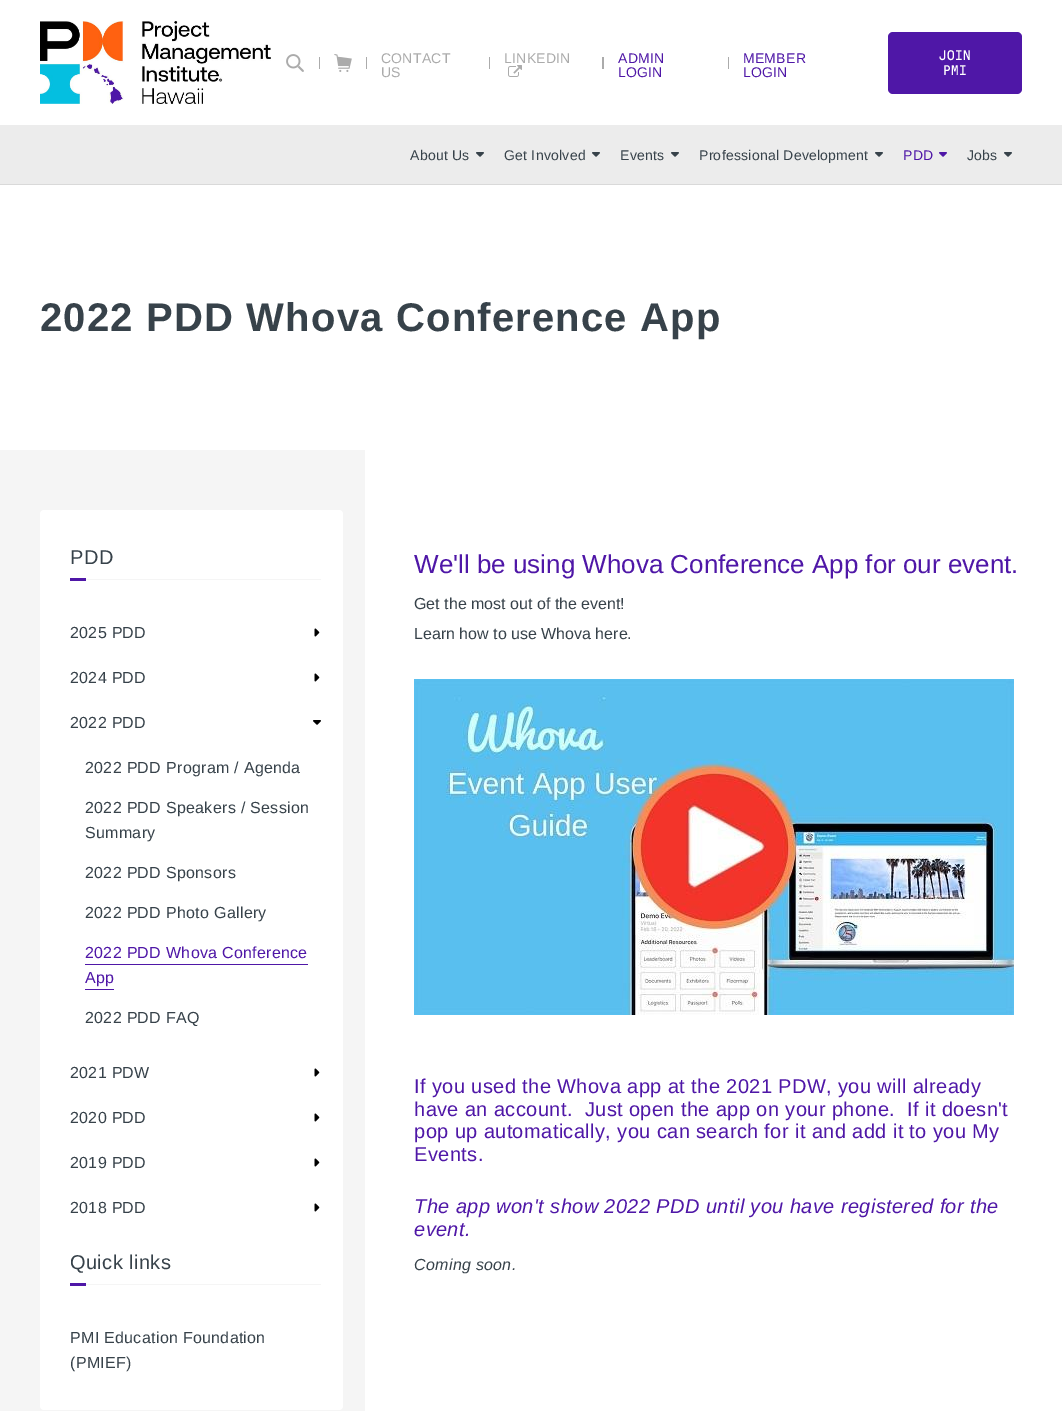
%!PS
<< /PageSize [1062 1411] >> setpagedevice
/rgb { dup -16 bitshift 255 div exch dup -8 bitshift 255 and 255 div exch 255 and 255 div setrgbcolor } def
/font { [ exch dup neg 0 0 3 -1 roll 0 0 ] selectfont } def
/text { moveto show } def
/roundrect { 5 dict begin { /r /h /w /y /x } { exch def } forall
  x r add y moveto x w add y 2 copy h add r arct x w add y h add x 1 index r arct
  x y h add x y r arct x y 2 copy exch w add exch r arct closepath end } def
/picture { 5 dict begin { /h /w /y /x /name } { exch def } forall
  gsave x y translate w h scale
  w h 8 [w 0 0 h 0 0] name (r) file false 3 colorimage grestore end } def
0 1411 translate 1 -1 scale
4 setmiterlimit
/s1 { /LiberationSans-Regular 26 font 16#4F17A7 rgb } def
/s2 { /LiberationSans-Regular 16 font 16#37424A rgb } def
16#FFFFFF rgb
0 0 1062 1411 rectfill
(pic1.raw) 40 21 231 83 picture
(pic2.raw) 286 54 18 18 picture
16#ABABAB rgb
319 57 1 12 rectfill
(pic3.raw) 334 54 18 18 picture
366 57 1 12 rectfill
/LiberationSans-Regular 14 font
381 63 moveto 0.25 0 (CONTACT) ashow
381 77 moveto 0.25 0 (US) ashow
489 57 1 12 rectfill
504 63 moveto 0.25 0 (LINKEDIN) ashow
(pic4.raw) 508 65 14 12 picture
602 57 2 12 rectfill
16#4F17A7 rgb
618 63 moveto 0.25 0 (ADMIN) ashow
618 77 moveto 0.25 0 (LOGIN) ashow
16#ABABAB rgb
728 57 1 12 rectfill
16#4F17A7 rgb
743 63 moveto 0.25 0 (MEMBER) ashow
743 77 moveto 0.25 0 (LOGIN) ashow
888 32 134 62 5 roundrect fill
/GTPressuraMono-Regular 14 font
16#FFFFFF rgb
939 60 moveto 0.25 0 (JOIN) ashow
943 75 moveto 0.25 0 (PMI) ashow
16#ECECEC rgb
0 125 1062 59 rectfill
16#D9D9D9 rgb
0 184 1062 1 rectfill
/LiberationSans-Regular 14 font
16#37424A rgb
410 160 moveto 0.25 0 (About Us) ashow
(pic5.raw) 476 152 8 5 picture
504 160 moveto 0.25 0 (Get Involved) ashow
(pic5.raw) 592 152 8 5 picture
620 160 moveto 0.25 0 (Events) ashow
(pic5.raw) 671 152 8 5 picture
699 160 moveto 0.25 0 (Professional Development) ashow
(pic5.raw) 875 152 8 5 picture
16#4F17A7 rgb
903 160 moveto 0.25 0 (PDD) ashow
(pic6.raw) 939 152 8 5 picture
16#37424A rgb
967 160 moveto 0.25 0 (Jobs) ashow
(pic5.raw) 1004 152 8 5 picture
/LiberationSans-Bold 40 font
40 331 moveto 1.2 0 (2022 PDD Whova Conference App) ashow
16#F5F5F5 rgb
0 450 365 961 rectfill
16#FFFFFF rgb
40 510 303 900 4 roundrect fill
16#F5F5F5 rgb
86 579 235 1 rectfill
/LiberationSans-Regular 20 font
16#37424A rgb
70 564 moveto 0.4 0 (PDD) ashow
16#4F17A7 rgb
70 578 16 3 rectfill
/LiberationSans-Regular 16 font
16#37424A rgb
70 638 moveto 0.3 0 (2025 PDD) ashow
(pic7.raw) 314 628 6 9 picture
70 683 moveto 0.3 0 (2024 PDD) ashow
(pic7.raw) 314 673 6 9 picture
70 728 moveto 0.3 0 (2022 PDD) ashow
(pic8.raw) 313 720 8 5 picture
85 773 moveto 0.3 0 (2022 PDD Program / Agenda) ashow
85 813 moveto 0.3 0 (2022 PDD Speakers / Session) ashow
85 838 moveto 0.3 0 (Summary) ashow
85 878 moveto 0.3 0 (2022 PDD Sponsors) ashow
85 918 moveto 0.3 0 (2022 PDD Photo Gallery) ashow
16#4F17A7 rgb
85 958 moveto 0.3 0 (2022 PDD Whova Conference) ashow
85 964 223 1 rectfill
85 983 moveto 0.3 0 (App) ashow
85 989 29 1 rectfill
16#37424A rgb
85 1023 moveto 0.3 0 (2022 PDD FAQ) ashow
70 1078 moveto 0.3 0 (2021 PDW) ashow
(pic7.raw) 314 1068 6 9 picture
70 1123 moveto 0.3 0 (2020 PDD) ashow
(pic7.raw) 314 1113 6 9 picture
70 1168 moveto 0.3 0 (2019 PDD) ashow
(pic7.raw) 314 1158 6 9 picture
70 1213 moveto 0.3 0 (2018 PDD) ashow
(pic7.raw) 314 1203 6 9 picture
16#F5F5F5 rgb
86 1284 235 1 rectfill
/LiberationSans-Regular 20 font
16#37424A rgb
70 1269 moveto 0.4 0 (Quick links) ashow
16#4F17A7 rgb
70 1283 16 3 rectfill
/LiberationSans-Regular 16 font
16#37424A rgb
70 1343 moveto 0.3 0 (PMI Education Foundation) ashow
70 1368 moveto 0.3 0 (\(PMIEF\)) ashow
s1
(We'll be using Whova Conference App for our event.) 414 573 text
s2
(Get the most out of the event!) 414 609 text
(Learn how to use Whova here.) 414 639 text
(pic9.raw) 414 679 600 336 picture
/LiberationSans-Regular 20 font
16#4F17A7 rgb
414 1093 moveto 0.4 0 (If you used the Whova app at the 2021 PDW, you will already) ashow
414 1116 moveto 0.4 0 (have an account.  Just open the app on your phone.  If it doesn't) ashow
414 1138 moveto 0.4 0 (pop up automatically, you can search for it and add it to you My) ashow
414 1161 moveto 0.4 0 (Events.) ashow
/LiberationSans-Italic 20 font
414 1213 moveto 0.4 0 (The app won't show 2022 PDD until you have registered for the) ashow
414 1236 moveto 0.4 0 (event.) ashow
/LiberationSans-Italic 16 font
16#37424A rgb
414 1270 moveto 0.3 0 (Coming soon.) ashow
showpage
